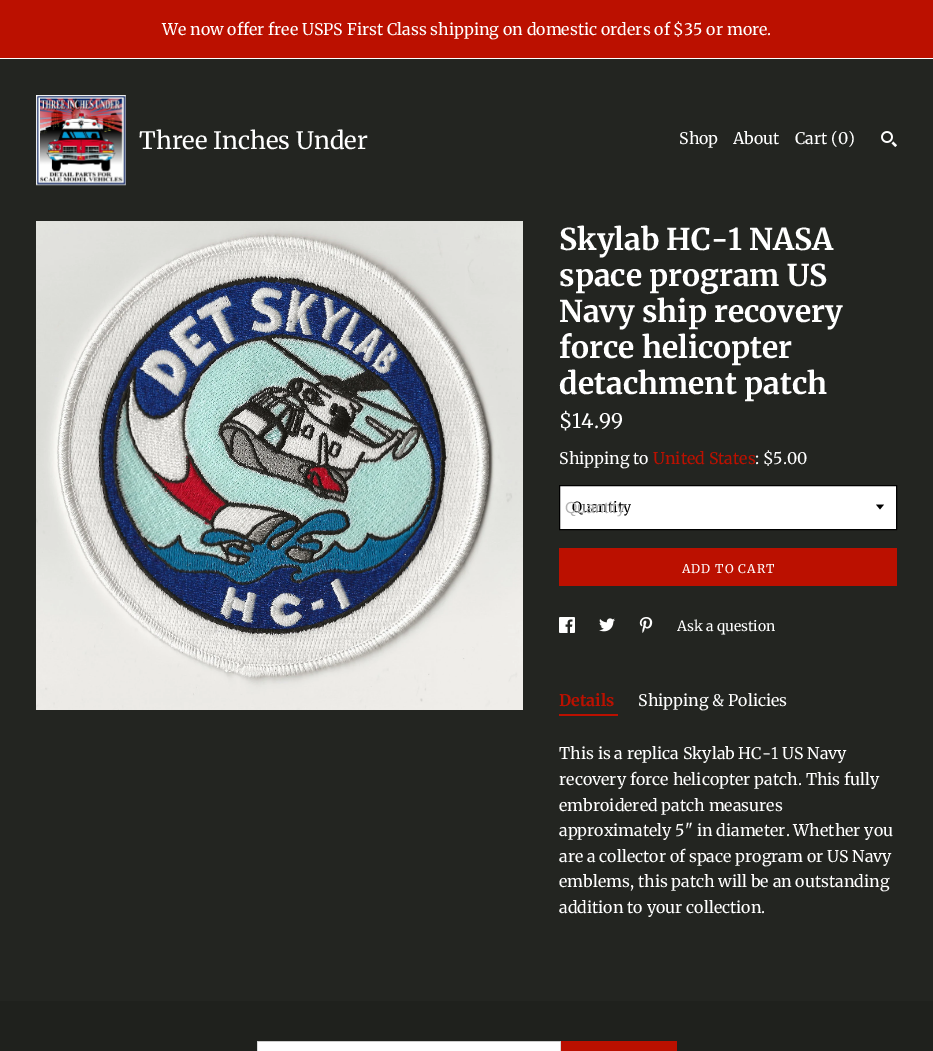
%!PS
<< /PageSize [933 1051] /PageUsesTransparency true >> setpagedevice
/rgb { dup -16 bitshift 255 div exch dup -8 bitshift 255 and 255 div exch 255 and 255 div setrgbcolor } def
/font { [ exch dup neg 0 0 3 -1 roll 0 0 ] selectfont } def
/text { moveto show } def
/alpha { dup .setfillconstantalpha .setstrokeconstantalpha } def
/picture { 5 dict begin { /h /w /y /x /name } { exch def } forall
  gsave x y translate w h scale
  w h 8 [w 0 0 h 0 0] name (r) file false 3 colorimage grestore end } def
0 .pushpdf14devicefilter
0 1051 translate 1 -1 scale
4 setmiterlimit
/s1 { /Merriweather-Regular 16 font 16#FFFFFF rgb } def
/s2 { /Merriweather-Regular 24 font 16#FFFFFF rgb } def
/s3 { /Merriweather-Bold 30 font 16#FFFFFF rgb } def
/s4 { /Merriweather-Regular 20 font 16#FFFFFF rgb } def
/s5 { /Merriweather-Regular 16 font 16#BB1000 rgb } def
/s6 { /Merriweather-Regular 14 font 16#000000 rgb } def
/s7 { /LiberationSans-Regular 16 font 16#B4B4B4 rgb } def
/s8 { /Merriweather-Regular 14 font 16#FFFFFF rgb } def
/s9 { /Merriweather-Bold 16 font 16#BB1000 rgb } def
16#232521 rgb
0 0 933 1051 rectfill
16#BB1000 rgb
0 0 933 58 rectfill
16#FFFFFF rgb
0 58 933 1 rectfill
s1
(We now offer free USPS First Class shipping on domestic orders of $35 or more.) 162 35 text
(pic1.raw) 36 95 90 91 picture
s2
(Three Inches Under) 139 149 text
s1
(Shop) 679 144 text
(About) 733 144 text
(Cart \(0\)) 795 144 text
(pic2.raw) 881 131 16 16 picture
(pic3.raw) 36 221 487 489 picture
s3
(Skylab HC-1 NASA) 559 250 text
(space program US) 559 286 text
(Navy ship recovery) 559 322 text
(force helicopter) 559 358 text
(detachment patch) 559 394 text
s4
($14.99) 559 428 text
s1
(Shipping to) 559 464 text
s5
(United States) 653 464 text
s1
(: $5.00) 755 464 text
559.5 485.5 moveto 896.5 485.5 lineto 896.5 529.5 lineto 559.5 529.5 lineto closepath gsave fill grestore
16#000000 rgb
stroke
s6
(Quantity) 572 512 text
s7
(Quantity) 565 513 text
(pic4.raw) 876 504 8 6 picture
16#BB1000 rgb
559 548 338 38 rectfill
/Merriweather-Regular 12 font
16#FFFFFF rgb
682 573 moveto 1 0 (ADD TO CART) ashow
(pic5.raw) 559 617 16 16 picture
(pic6.raw) 599 618 16 14 picture
(pic7.raw) 639 617 14 16 picture
s8
(Ask a question) 677 631 text
s9
(Details) 559 706 text
559 714 59 2 rectfill
s1
(Shipping & Policies) 638 706 text
(This is a replica Skylab HC-1 US Navy) 559 759 text
(recovery force helicopter patch. This fully) 559 785 text
(embroidered patch measures) 559 811 text
(approximately 5" in diameter. Whether you) 559 836 text
(are a collector of space program or US Navy) 559 862 text
(emblems, this patch will be an outstanding) 559 887 text
(addition to your collection.) 559 913 text
16#1F211D rgb
0 1001 933 50 rectfill
16#FFFFFF rgb
257 1041 304 10 rectfill
16#CCCCCC rgb
257 1041 moveto 561 1041 lineto 560 1042 lineto 258 1042 lineto closepath fill
0.15 alpha
16#000000 rgb
561 1041 moveto 561 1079 lineto 560 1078 lineto 560 1042 lineto closepath fill
257 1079 moveto 257 1041 lineto 258 1042 lineto 258 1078 lineto closepath fill
1 alpha
16#BB1000 rgb
561 1041 116 10 rectfill
.poppdf14devicefilter showpage
